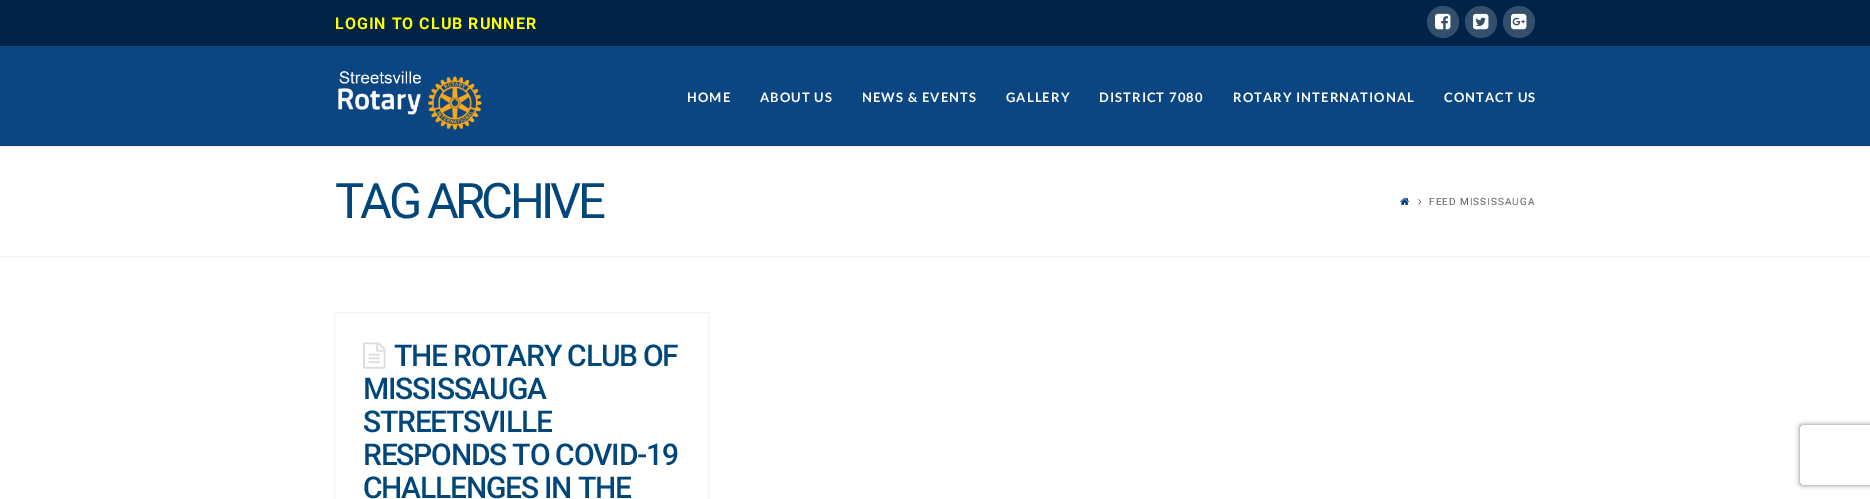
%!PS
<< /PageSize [1870 499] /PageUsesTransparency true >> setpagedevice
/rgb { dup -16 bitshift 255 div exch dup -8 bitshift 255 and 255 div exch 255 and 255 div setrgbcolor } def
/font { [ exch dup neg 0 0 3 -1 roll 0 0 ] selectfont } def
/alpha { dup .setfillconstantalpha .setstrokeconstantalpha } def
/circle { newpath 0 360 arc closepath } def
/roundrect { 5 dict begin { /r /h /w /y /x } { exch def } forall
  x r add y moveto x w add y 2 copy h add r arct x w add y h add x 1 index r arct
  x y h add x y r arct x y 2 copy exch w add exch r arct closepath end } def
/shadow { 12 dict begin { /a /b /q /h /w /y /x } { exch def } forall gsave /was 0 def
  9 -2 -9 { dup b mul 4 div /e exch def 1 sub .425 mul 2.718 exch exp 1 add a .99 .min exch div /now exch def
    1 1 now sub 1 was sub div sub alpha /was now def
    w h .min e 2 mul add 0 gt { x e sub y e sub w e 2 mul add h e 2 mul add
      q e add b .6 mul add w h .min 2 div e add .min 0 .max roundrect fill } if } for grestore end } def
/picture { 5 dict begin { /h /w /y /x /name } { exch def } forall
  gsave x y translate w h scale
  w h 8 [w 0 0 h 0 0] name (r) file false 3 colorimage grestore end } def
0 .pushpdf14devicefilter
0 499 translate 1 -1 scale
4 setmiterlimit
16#FFFFFF rgb
0 0 1870 499 rectfill
16#002347 rgb
0 0 1870 46 rectfill
/Roboto-Bold 16 font
16#FFFF00 rgb
335 29 moveto 1 0 (LOGIN TO CLUB RUNNER) ashow
16#334F6C rgb
1443 22 16 circle fill
(pic1.raw) 1435 13 16 17 picture
1481 22 16 circle fill
(pic2.raw) 1473 13 16 17 picture
1519 22 16 circle fill
(pic3.raw) 1511 13 16 17 picture
16#0B4683 rgb
0 46 1870 100 rectfill
(pic4.raw) 338 71 144 59 picture
/Lato-Bold 13 font
16#FFFFFF rgb
687 102 moveto 1.1 0 (HOME) ashow
760 102 moveto 1.1 0 (ABOUT US) ashow
862 102 moveto 1.1 0 (NEWS & EVENTS) ashow
1006 102 moveto 1.1 0 (GALLERY) ashow
1099 102 moveto 1.1 0 (DISTRICT 7080) ashow
1233 102 moveto 1.1 0 (ROTARY INTERNATIONAL) ashow
1444 102 moveto 1.1 0 (CONTACT US) ashow
16#F2F2F2 rgb
0 146 1870 1 rectfill
0 256 1870 1 rectfill
/Roboto-Regular 49 font
16#00467B rgb
335 218 moveto -3.75 0 (TAG ARCHIVE) ashow
(pic5.raw) 1400 197 10 8 picture
(pic6.raw) 1418 199 4 6 picture
/Roboto-Regular 10 font
16#616161 rgb
1429 205 moveto 1 0 (FEED MISSISSAUGA) ashow
16#F2F2F2 rgb
334.5 312.5 374 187 rectstroke
(pic7.raw) 363 342 23 27 picture
/Roboto-Medium 30 font
16#00467B rgb
394 366 moveto -1.2 0 (THE ROTARY CLUB OF) ashow
363 399 moveto -1.2 0 (MISSISSAUGA) ashow
363 432 moveto -1.2 0 (STREETSVILLE) ashow
363 465 moveto -1.2 0 (RESPONDS TO COVID-19) ashow
363 498 moveto -1.2 0 (CHALLENGES IN THE) ashow
gsave
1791 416 moveto 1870 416 lineto 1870 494 lineto 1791 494 lineto closepath 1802 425 moveto 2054 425 lineto 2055 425 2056 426 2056 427 curveto 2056 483 lineto 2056 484 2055 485 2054 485 curveto 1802 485 lineto 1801 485 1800 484 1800 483 curveto 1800 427 lineto 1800 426 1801 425 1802 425 curveto closepath eoclip newpath
16#808080 rgb
1800 425 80 60 2 2.5 1 shadow
grestore
.poppdf14devicefilter showpage
